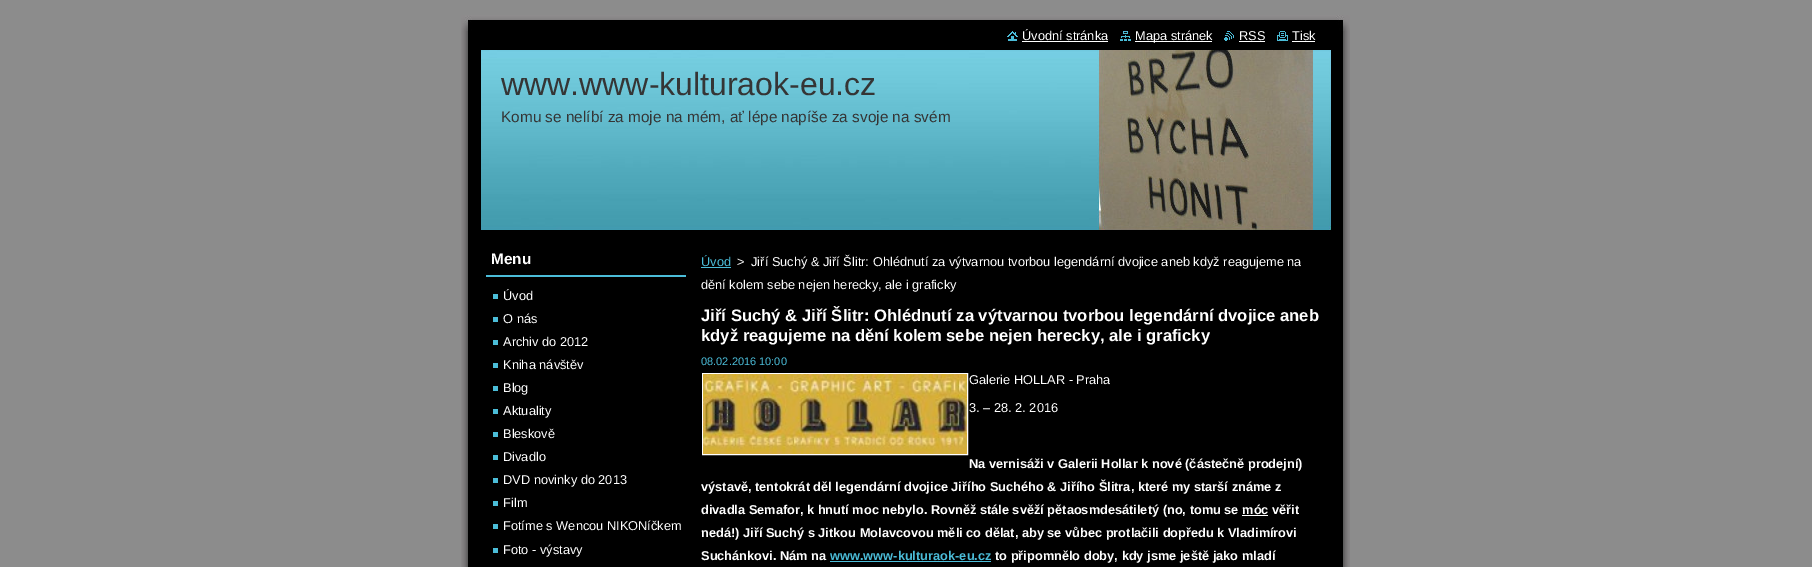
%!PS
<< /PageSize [1812 567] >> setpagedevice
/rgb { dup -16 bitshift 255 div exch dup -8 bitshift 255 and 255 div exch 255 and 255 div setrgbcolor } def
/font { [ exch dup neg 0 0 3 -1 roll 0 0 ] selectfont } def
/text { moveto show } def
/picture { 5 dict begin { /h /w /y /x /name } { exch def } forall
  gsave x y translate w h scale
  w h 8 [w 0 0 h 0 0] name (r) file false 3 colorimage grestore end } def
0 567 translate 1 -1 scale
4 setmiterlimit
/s1 { /LiberationSans-Regular 12.8 font 16#FFFFFF rgb } def
/s2 { /LiberationSans-Regular 32 font 16#353535 rgb } def
/s3 { /LiberationSans-Regular 15.35 font 16#353535 rgb } def
/s4 { /LiberationSans-Bold 15.35 font 16#FFFFFF rgb } def
/s5 { /LiberationSans-Regular 12.8 font 16#4BBCD8 rgb } def
/s6 { /LiberationSans-Bold 16.65 font 16#FFFFFF rgb } def
/s7 { /LiberationSans-Regular 11 font 16#4BBCD8 rgb } def
/s8 { /LiberationSans-Bold 12.8 font 16#FFFFFF rgb } def
/s9 { /LiberationSans-Bold 12.8 font 16#4BBCD8 rgb } def
16#8C8C8C rgb
0 0 1812 567 rectfill
(pic1.raw) 461 31 889 528 picture
(pic2.raw) 461 15 889 16 picture
(pic3.raw) 461 559 889 8 picture
(pic4.raw) 1007 31 11 10 picture
s1
(Úvodní stránka) 1022 40 text
1022 41 86 1 rectfill
(pic5.raw) 1120 31 11 10 picture
1135 41 77 1 rectfill
(Mapa stránek) 1135 40 text
(pic6.raw) 1224 31 10 10 picture
(RSS) 1239 40 text
1239 41 26 1 rectfill
(pic7.raw) 1277 31 11 10 picture
(Tisk) 1292 40 text
1292 41 23 1 rectfill
(pic8.raw) 481 50 850 180 picture
s2
(www.www-kulturaok-eu.cz) 501 95 text
s3
(Komu se nelíbí za moje na mém, ať lépe napíše za svoje na svém) 501 122 text
16#4BBCD8 rgb
486 275 200 2 rectfill
s4
(Menu) 491 264 text
s1
(Úvod) 503 300 text
16#4BBDD8 rgb
493 294 5 5 rectfill
s1
(O nás) 503 323 text
16#4BBDD8 rgb
493 317 5 5 rectfill
s1
(Archiv do 2012) 503 346 text
16#4BBDD8 rgb
493 340 5 5 rectfill
s1
(Kniha návštěv) 503 369 text
16#4BBDD8 rgb
493 363 5 5 rectfill
s1
(Blog) 503 392 text
16#4BBDD8 rgb
493 386 5 5 rectfill
s1
(Aktuality) 503 415 text
16#4BBDD8 rgb
493 409 5 5 rectfill
s1
(Bleskově) 503 438 text
16#4BBDD8 rgb
493 432 5 5 rectfill
s1
(Divadlo) 503 461 text
16#4BBDD8 rgb
493 455 5 5 rectfill
s1
(DVD novinky do 2013) 503 484 text
16#4BBDD8 rgb
493 478 5 5 rectfill
s1
(Film) 503 507 text
16#4BBDD8 rgb
493 501 5 5 rectfill
s1
(Fotíme s Wencou NIKONíčkem) 503 530 text
16#4BBDD8 rgb
493 524 5 5 rectfill
s1
(Foto - výstavy) 503 554 text
16#4BBDD8 rgb
493 548 5 5 rectfill
s5
(Úvod) 701 266 text
701 267 30 1 rectfill
s1
(>) 737 266 text
(Jiří Suchý & Jiří Šlitr: Ohlédnutí za výtvarnou tvorbou legendární dvojice aneb když reagujeme na) 751 266 text
(dění kolem sebe nejen herecky, ale i graficky) 701 289 text
s6
(Jiří Suchý & Jiří Šlitr: Ohlédnutí za výtvarnou tvorbou legendární dvojice aneb) 701 321 text
(když reagujeme na dění kolem sebe nejen herecky, ale i graficky) 701 341 text
s7
(08.02.2016 10:00) 701 365 text
16#FFFFFF rgb
702.5 373.5 265 81 rectstroke
(pic9.raw) 703 374 264 80 picture
s1
(Galerie HOLLAR - Praha) 969 384 text
(3. – 28. 2. 2016) 969 412 text
s8
(Na vernisáži v Galerii Hollar k nové \(částečně prodejní\)) 969 468 text
(výstavě, tentokrát děl legendární dvojice Jiřího Suchého & Jiřího Šlitra, které my starší známe z) 701 491 text
(divadla Semafor, k hnutí moc nebylo. Rovněž stále svěží pětaosmdesátiletý \(no, tomu se móc věřit) 701 514 text
1242 515 26 1 rectfill
(nedá!\) Jiří Suchý s Jitkou Molavcovou měli co dělat, aby se vůbec protlačili dopředu k Vladimírovi) 701 537 text
(Suchánkovi. Nám na) 701 560 text
s9
(www.www-kulturaok-eu.cz) 830 560 text
830 561 161 1 rectfill
s8
(to připomnělo doby, kdy jsme ještě jako mladí) 995 560 text
showpage
